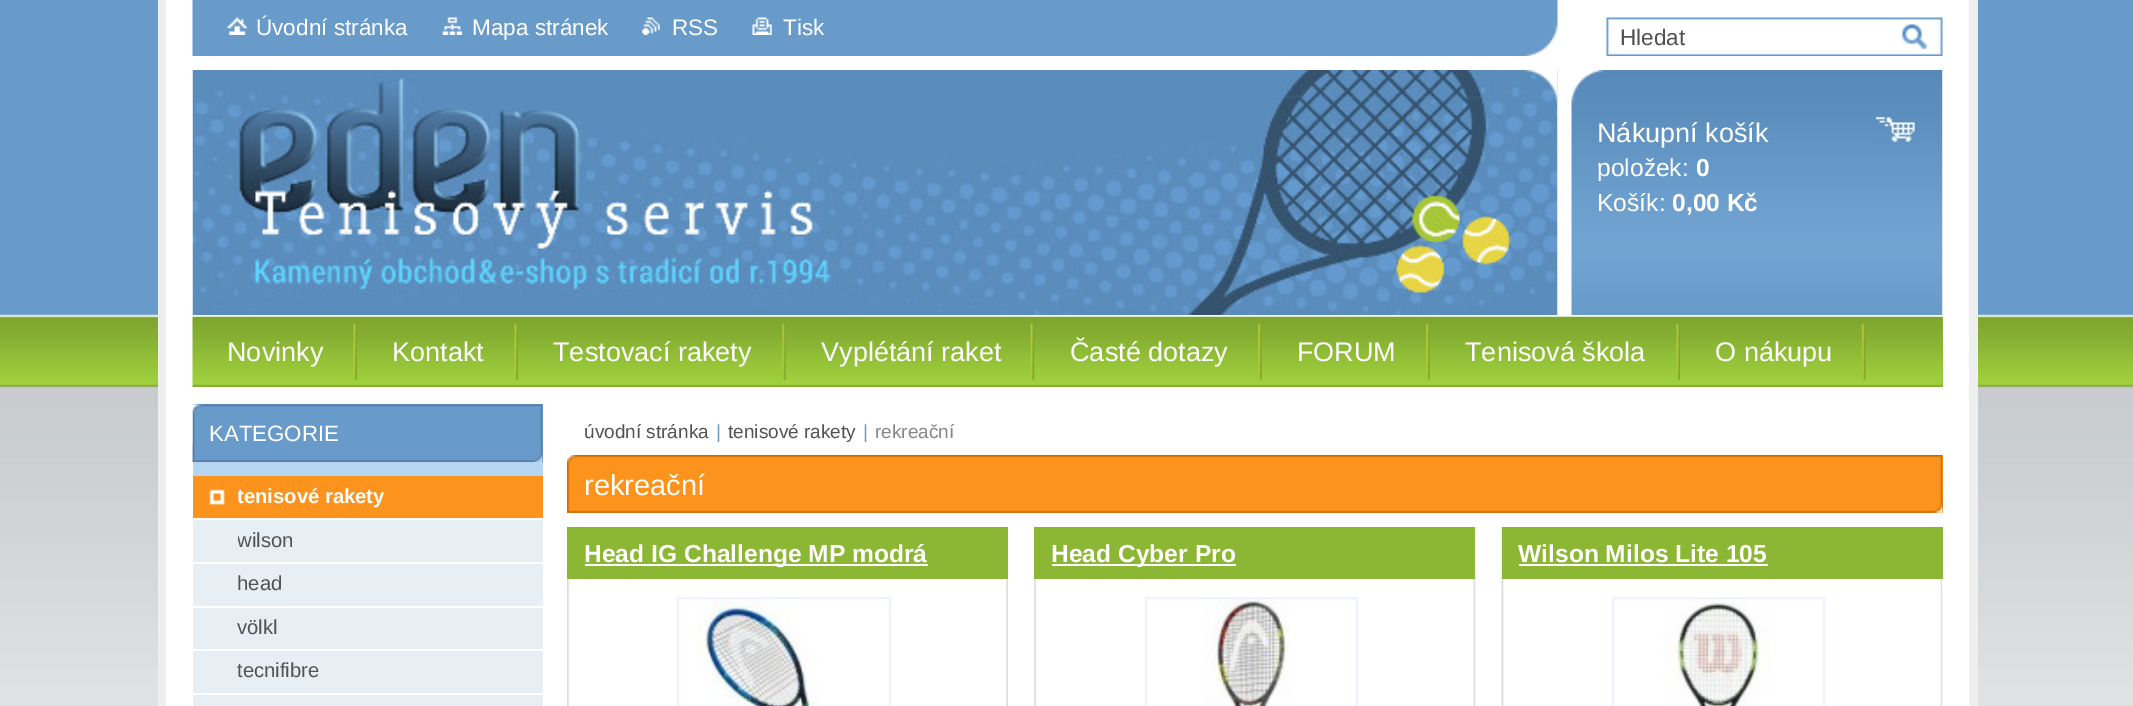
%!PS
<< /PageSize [2133 706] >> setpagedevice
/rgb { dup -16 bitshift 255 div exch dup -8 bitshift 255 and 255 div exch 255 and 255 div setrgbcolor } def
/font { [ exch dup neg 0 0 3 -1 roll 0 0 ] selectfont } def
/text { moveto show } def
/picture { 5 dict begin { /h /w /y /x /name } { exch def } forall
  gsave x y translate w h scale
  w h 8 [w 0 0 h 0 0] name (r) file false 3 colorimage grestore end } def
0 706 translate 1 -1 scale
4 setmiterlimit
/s1 { /LiberationSans-Regular 22.5 font 16#FFFFFF rgb } def
/s2 { /LiberationSans-Regular 22.5 font 16#535353 rgb } def
/s3 { /LiberationSans-Regular 27 font 16#FFFFFF rgb } def
/s4 { /LiberationSans-Regular 24.6 font 16#FFFFFF rgb } def
/s5 { /LiberationSans-Bold 24.6 font 16#FFFFFF rgb } def
/s6 { /LiberationSans-Regular 22.25 font 16#FFFFFF rgb } def
/s7 { /LiberationSans-Bold 20.25 font 16#FFFFFF rgb } def
/s8 { /LiberationSans-Regular 20.25 font 16#535353 rgb } def
/s9 { /LiberationSans-Regular 19 font 16#535353 rgb } def
/s10 { /LiberationSans-Regular 19 font 16#689BCA rgb } def
/s11 { /LiberationSans-Regular 19 font 16#878787 rgb } def
/s12 { /LiberationSans-Regular 29 font 16#FFFFFF rgb } def
16#FFFFFF rgb
0 0 2133 706 rectfill
(pic1.raw) 0 0 2133 706 picture
166 0 1803 706 rectfill
16#EFEFEF rgb
1969 0 9 706 rectfill
158 0 8 706 rectfill
(pic2.raw) 192 0 1366 56 picture
(pic3.raw) 227 17 20 18 picture
s1
(Úvodní stránka) 256 35 text
(pic4.raw) 442 17 20 18 picture
(Mapa stránek) 472 35 text
(pic5.raw) 642 17 18 18 picture
(RSS) 672 35 text
(pic6.raw) 752 17 20 18 picture
(Tisk) 783 35 text
(pic7.raw) 1606 17 337 39 picture
s2
(Hledat) 1620 45 text
(pic8.raw) 1907 25 15 23 picture
(pic9.raw) 192 70 1366 245 picture
(pic10.raw) 1523 70 35 34 picture
(pic11.raw) 1571 70 372 245 picture
(pic12.raw) 1876 117 39 25 picture
s3
(Nákupní košík) 1597 142 text
s4
(položek:) 1597 176 text
s5
(0) 1696 176 text
s4
(Košík:) 1597 211 text
s5
(0,00 Kč) 1672 211 text
16#8CB734 rgb
193 317 1750 70 rectfill
(pic13.raw) 192 316 1751 71 picture
(pic14.raw) 353 323 4 57 picture
s3
(Novinky) 227 361 text
(pic14.raw) 514 323 4 57 picture
(Kontakt) 392 361 text
(pic15.raw) 782 323 4 57 picture
(Testovací rakety) 553 361 text
(pic16.raw) 1030 323 5 57 picture
(Vyplétání raket) 821 361 text
(pic15.raw) 1258 323 4 57 picture
(Časté dotazy) 1070 361 text
(pic15.raw) 1426 323 4 57 picture
(FORUM) 1297 361 text
(pic14.raw) 1676 323 4 57 picture
(Tenisová škola) 1465 361 text
(pic17.raw) 1862 323 4 57 picture
(O nákupu) 1715 361 text
16#B6D5F2 rgb
193 462 350 14 rectfill
16#689BCA rgb
193 404 350 58 rectfill
(pic18.raw) 192 404 351 58 picture
(pic19.raw) 192 444 351 18 picture
s6
(KATEGORIE) 209 441 text
16#FC931C rgb
193 476 350 42 rectfill
(pic20.raw) 209 489 16 16 picture
gsave
238 476 287 42 rectclip
s7
(tenisové rakety) 237 503 text
grestore
16#E7EFF5 rgb
193 520 350 186 rectfill
16#FFFFFF rgb
193 562 350 2 rectfill
gsave
238 520 287 42 rectclip
s8
(wilson) 237 547 text
grestore
193 606 350 2 rectfill
s8
(head) 237 590 text
16#FFFFFF rgb
193 649 350 2 rectfill
s8
(völkl) 237 634 text
16#FFFFFF rgb
193 693 350 2 rectfill
s8
(tecnifibre) 237 677 text
s9
(úvodní stránka) 584 438 text
s10
(|) 716 438 text
s9
(tenisové rakety) 728 438 text
s10
(|) 863 438 text
s11
(rekreační) 875 438 text
16#FC931C rgb
567 455 1376 58 rectfill
(pic21.raw) 567 455 1376 58 picture
(pic22.raw) 567 495 1376 18 picture
s12
(rekreační) 584 495 text
(pic23.raw) 567 526 441 180 picture
16#8CB734 rgb
567 527 441 52 rectfill
16#FFFFFF rgb
585 564 343 2 rectfill
s5
(Head IG Challenge MP modrá) 584 562 text
(pic24.raw) 695 599 125 107 picture
16#EFF3FF rgb
2 setlinewidth
678 598 212 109 rectstroke
(pic25.raw) 1034 526 442 180 picture
16#8CB734 rgb
1034 527 441 52 rectfill
16#FFFFFF rgb
1052 564 184 2 rectfill
(Head Cyber Pro) 1051 562 text
(pic26.raw) 1204 599 87 107 picture
16#EFF3FF rgb
1146 598 211 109 rectstroke
(pic27.raw) 1501 526 442 180 picture
16#8CB734 rgb
1502 527 441 52 rectfill
s5
(Wilson Milos Lite 105) 1518 562 text
1519 564 249 2 rectfill
(pic28.raw) 1663 599 108 107 picture
16#EFF3FF rgb
1613 598 211 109 rectstroke
showpage
